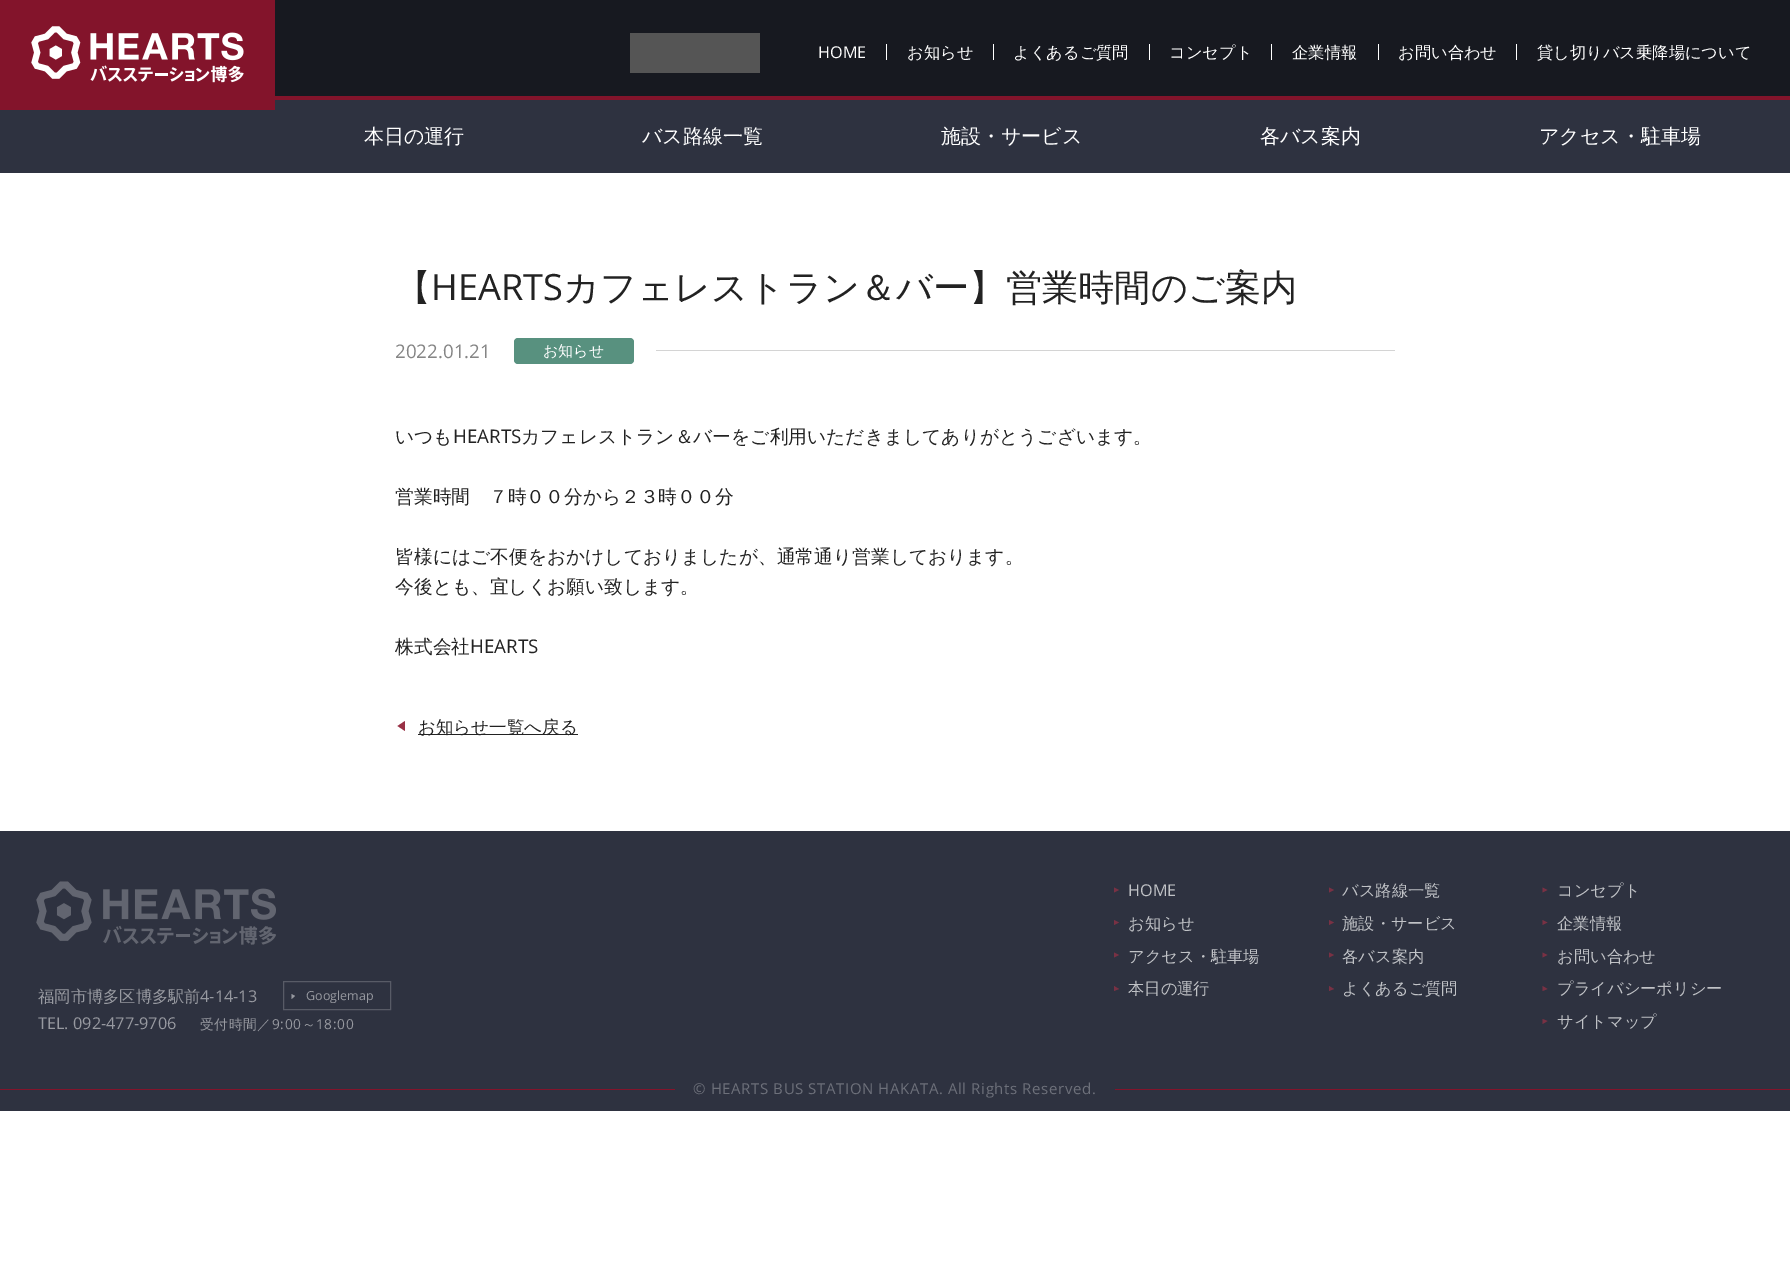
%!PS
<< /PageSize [1790 1281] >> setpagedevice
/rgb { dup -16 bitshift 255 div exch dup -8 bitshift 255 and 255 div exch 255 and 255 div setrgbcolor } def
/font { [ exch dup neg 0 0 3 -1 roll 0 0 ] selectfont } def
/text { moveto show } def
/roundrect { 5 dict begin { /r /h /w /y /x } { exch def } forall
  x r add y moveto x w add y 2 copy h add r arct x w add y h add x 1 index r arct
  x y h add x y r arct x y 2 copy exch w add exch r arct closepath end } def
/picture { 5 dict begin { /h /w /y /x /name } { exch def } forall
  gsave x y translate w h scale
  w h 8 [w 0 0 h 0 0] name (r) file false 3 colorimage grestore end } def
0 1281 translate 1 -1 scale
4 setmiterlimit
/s1 { /OpenSans-Regular 16.25 font 16#FFFFFF rgb } def
/s2 { /WenQuanYiZenHei-Medium 16.25 font 16#FFFFFF rgb } def
/s3 { /WenQuanYiZenHei-Medium 20 font 16#FFFFFF rgb } def
/s4 { /WenQuanYiZenHei-Medium 36.25 font 16#222222 rgb } def
/s5 { /OpenSans-Regular 36.25 font 16#222222 rgb } def
/s6 { /OpenSans-Regular 18.75 font 16#858585 rgb } def
/s7 { /WenQuanYiZenHei-Medium 15 font 16#FFFFFF rgb } def
/s8 { /WenQuanYiZenHei-Medium 18.75 font 16#222222 rgb } def
/s9 { /OpenSans-Regular 18.75 font 16#222222 rgb } def
/s10 { /WenQuanYiZenHei-Medium 17.5 font 16#222222 rgb } def
/s11 { /WenQuanYiZenHei-Medium 16.25 font 16#9799A0 rgb } def
/s12 { /OpenSans-Regular 16.25 font 16#9799A0 rgb } def
/s13 { /OpenSans-Regular 12.5 font 16#9799A0 rgb } def
/s14 { /OpenSans-Regular 16.25 font 16#C0C2C6 rgb } def
/s15 { /WenQuanYiZenHei-Medium 16.25 font 16#C0C2C6 rgb } def
16#FFFFFF rgb
0 0 1790 1281 rectfill
16#2E3240 rgb
0 100 1790 73 rectfill
16#83142B rgb
0 0 275 110 rectfill
(pic1.raw) 31 26 213 57 picture
16#171920 rgb
275 0 1515 96 rectfill
16#83142B rgb
275 96 1515 4 rectfill
16#555555 rgb
630 33 130 40 rectfill
s1
(HOME) 818 58 text
886 44 1 16 rectfill
s2
(お知らせ) 907 58 text
993 44 1 16 rectfill
(よくあるご質問) 1013 58 text
1149 44 1 16 rectfill
(コンセプト) 1169 58 text
1271 44 1 16 rectfill
(企業情報) 1292 58 text
1378 44 1 16 rectfill
(お問い合わせ) 1398 58 text
1516 44 1 16 rectfill
(貸し切りバス乗降場について) 1537 58 text
s3
(本日の運行) 364 143 text
(バス路線一覧) 642 143 text
(施設・サービス) 941 143 text
(各バス案内) 1260 143 text
(アクセス・駐車場) 1539 143 text
s4
(【) 395 300 text
s5
(HEARTS) 431 300 text
s4
(カフェレストラン＆バー】営業時間のご案内) 563 300 text
s6
(2022.01.21) 395 358 text
16#58917F rgb
514 338 120 26 4 roundrect fill
s7
(お知らせ) 543 356 text
16#D4D4D4 rgb
656 350 739 1 rectfill
s8
(いつも) 395 443 text
s9
(HEARTS) 453 443 text
s8
(カフェレストラン＆バーをご利用いただきましてありがとうございます。) 521 443 text
(営業時間　７時００分から２３時００分) 395 503 text
(皆様にはご不便をおかけしておりましたが、通常通り営業しております。) 395 563 text
(今後とも、宜しくお願い致します。) 395 593 text
(株式会社) 395 653 text
s9
(HEARTS) 470 653 text
16#993146 rgb
405 721 moveto 405 731 lineto 397.5 726 lineto closepath fill
16#222222 rgb
418 734 160 1 rectfill
s10
(お知らせ一覧へ戻る) 418 733 text
16#2E3240 rgb
0 831 1790 280 rectfill
(pic2.raw) 36 881 240 64 picture
s11
(福岡市博多区博多駅前) 38 1002 text
s12
(4-14-13) 200 1002 text
295 996 moveto 291.5 994 lineto 291.5 999 lineto closepath fill
16#585B66 rgb
283.5 981.5 107 28 rectstroke
s13
(Googlemap) 306 1000 text
s12
(TEL. 092-477-9706) 38 1029 text
/WenQuanYiZenHei-Medium 13.75 font
200 1029 moveto 0.6 0 (受付時間／) ashow
/OpenSans-Regular 13.75 font
272 1029 moveto 0.6 0 (9:00) ashow
/WenQuanYiZenHei-Medium 13.75 font
302 1029 moveto 0.6 0 (～) ashow
/OpenSans-Regular 13.75 font
316 1029 moveto 0.6 0 (18:00) ashow
16#793144 rgb
1114 892.5 moveto 1114 887.5 lineto 1119 890 lineto closepath fill
s14
(HOME) 1128 896 text
16#793144 rgb
1114 925 moveto 1114 920 lineto 1119 922.5 lineto closepath fill
s15
(お知らせ) 1128 929 text
16#793144 rgb
1114 957.5 moveto 1114 952.5 lineto 1119 955 lineto closepath fill
s15
(アクセス・駐車場) 1128 962 text
16#793144 rgb
1114 991 moveto 1114 986 lineto 1119 989 lineto closepath fill
s15
(本日の運行) 1128 994 text
16#793144 rgb
1329 892.5 moveto 1329 887.5 lineto 1334 890 lineto closepath fill
s15
(バス路線一覧) 1342 896 text
16#793144 rgb
1329 925 moveto 1329 920 lineto 1334 922.5 lineto closepath fill
s15
(施設・サービス) 1342 929 text
16#793144 rgb
1329 957.5 moveto 1329 952.5 lineto 1334 955 lineto closepath fill
s15
(各バス案内) 1342 962 text
16#793144 rgb
1329 991 moveto 1329 986 lineto 1334 989 lineto closepath fill
s15
(よくあるご質問) 1342 994 text
16#793144 rgb
1542.5 892.5 moveto 1542.5 887.5 lineto 1547.5 890 lineto closepath fill
s15
(コンセプト) 1557 896 text
16#793144 rgb
1542.5 925 moveto 1542.5 920 lineto 1547.5 922.5 lineto closepath fill
s15
(企業情報) 1557 929 text
16#793144 rgb
1542.5 957.5 moveto 1542.5 952.5 lineto 1547.5 955 lineto closepath fill
s15
(お問い合わせ) 1557 962 text
16#793144 rgb
1542.5 991 moveto 1542.5 986 lineto 1547.5 989 lineto closepath fill
s15
(プライバシーポリシー) 1557 994 text
16#793144 rgb
1542.5 1024 moveto 1542.5 1019 lineto 1547.5 1021 lineto closepath fill
s15
(サイトマップ) 1557 1027 text
16#83142B rgb
0 1089 1790 1 rectfill
16#2E3240 rgb
675 1089 440 1 rectfill
/OpenSans-Regular 15 font
16#6D707A rgb
693 1094 moveto 0.6 0 (© HEARTS BUS STATION HAKATA. All Rights Reserved.) ashow
showpage
